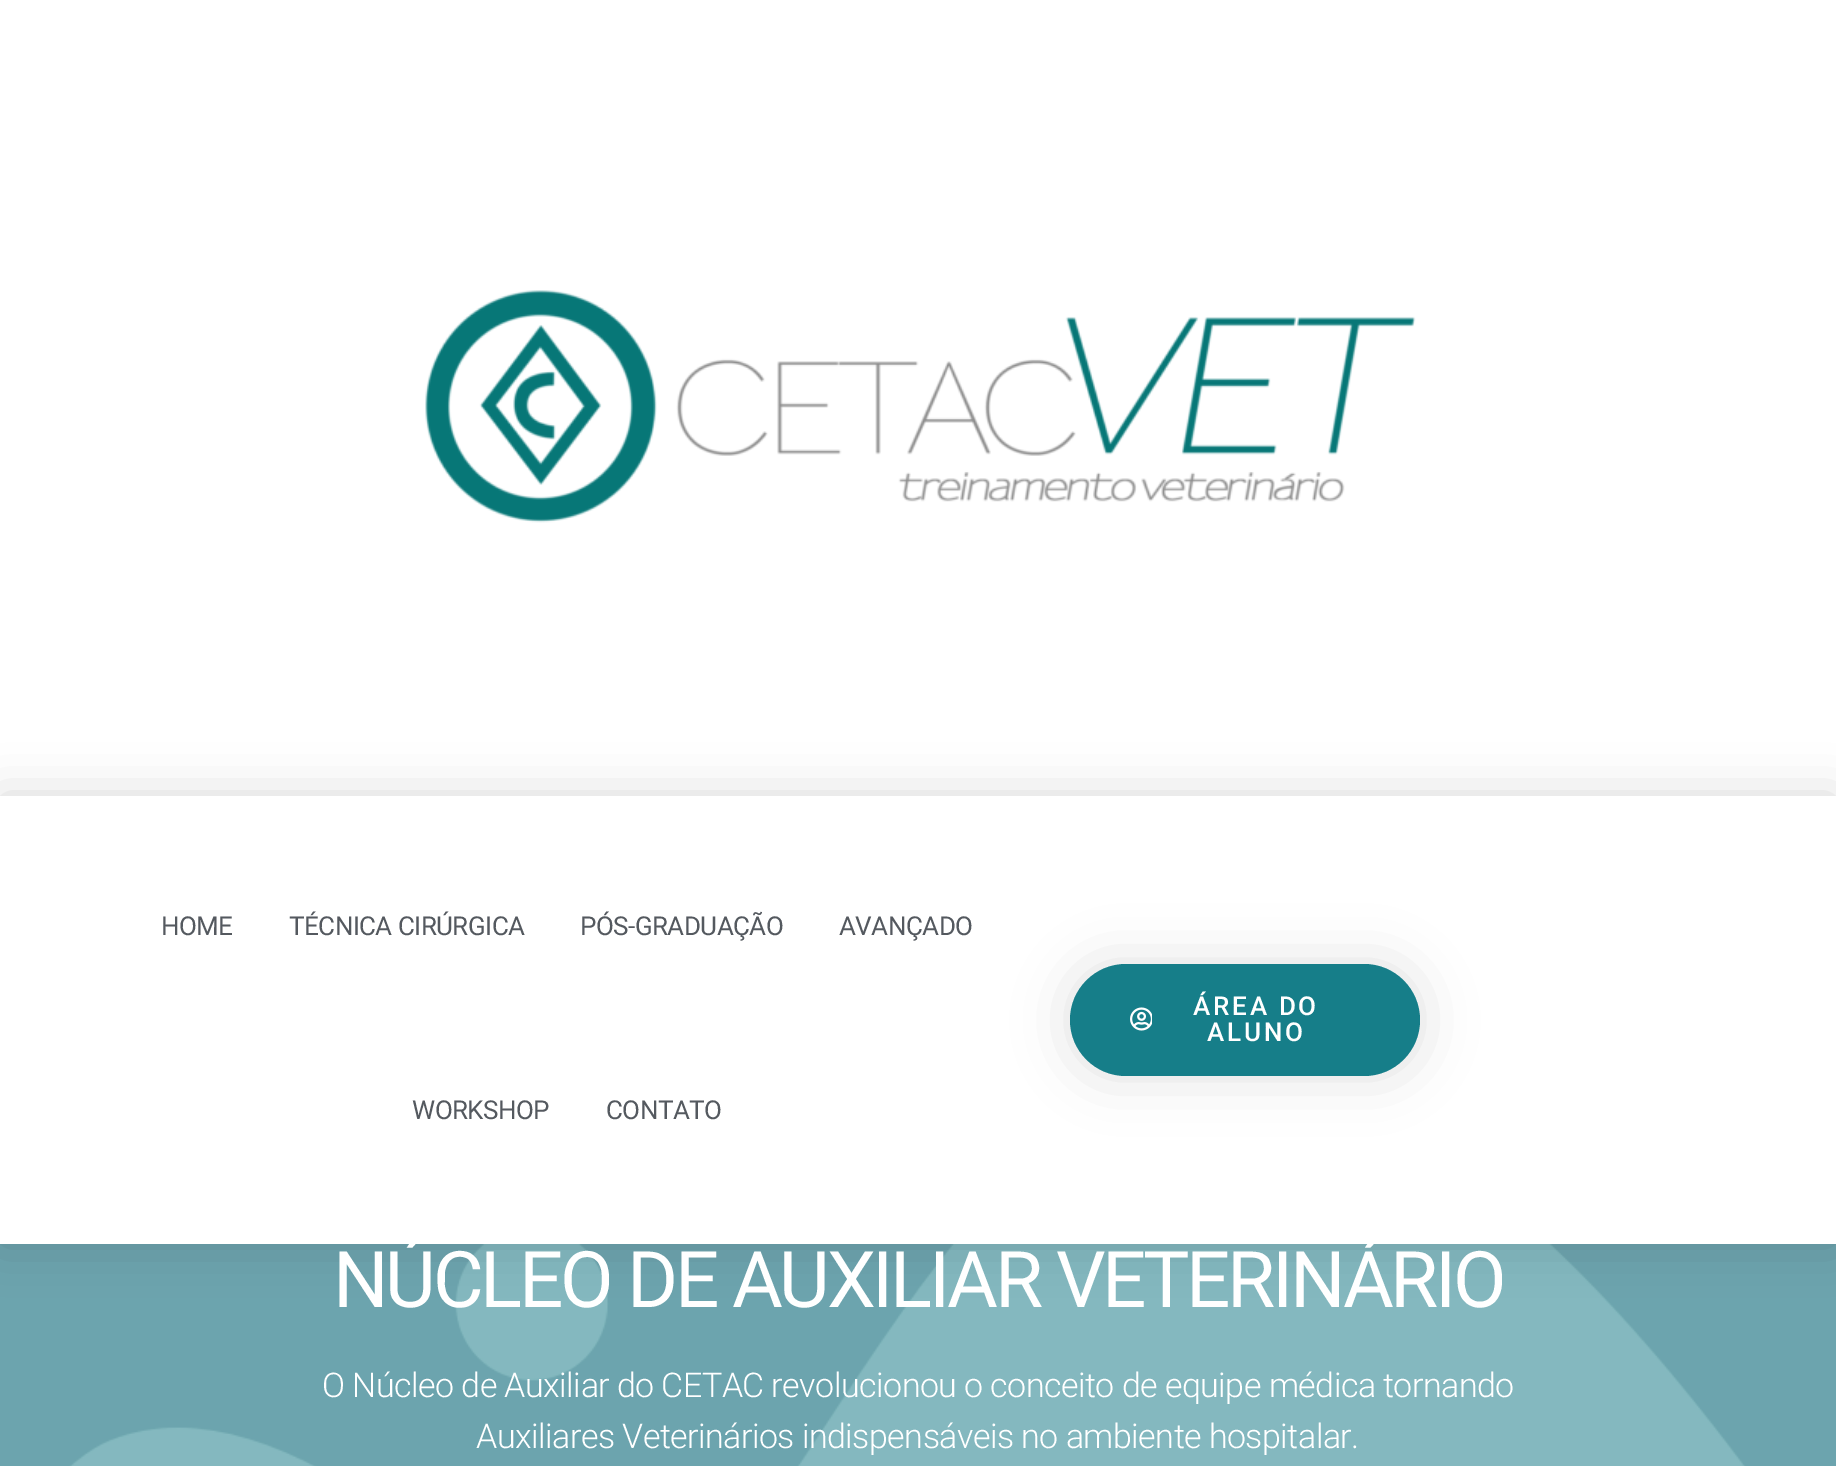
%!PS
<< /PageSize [1836 1466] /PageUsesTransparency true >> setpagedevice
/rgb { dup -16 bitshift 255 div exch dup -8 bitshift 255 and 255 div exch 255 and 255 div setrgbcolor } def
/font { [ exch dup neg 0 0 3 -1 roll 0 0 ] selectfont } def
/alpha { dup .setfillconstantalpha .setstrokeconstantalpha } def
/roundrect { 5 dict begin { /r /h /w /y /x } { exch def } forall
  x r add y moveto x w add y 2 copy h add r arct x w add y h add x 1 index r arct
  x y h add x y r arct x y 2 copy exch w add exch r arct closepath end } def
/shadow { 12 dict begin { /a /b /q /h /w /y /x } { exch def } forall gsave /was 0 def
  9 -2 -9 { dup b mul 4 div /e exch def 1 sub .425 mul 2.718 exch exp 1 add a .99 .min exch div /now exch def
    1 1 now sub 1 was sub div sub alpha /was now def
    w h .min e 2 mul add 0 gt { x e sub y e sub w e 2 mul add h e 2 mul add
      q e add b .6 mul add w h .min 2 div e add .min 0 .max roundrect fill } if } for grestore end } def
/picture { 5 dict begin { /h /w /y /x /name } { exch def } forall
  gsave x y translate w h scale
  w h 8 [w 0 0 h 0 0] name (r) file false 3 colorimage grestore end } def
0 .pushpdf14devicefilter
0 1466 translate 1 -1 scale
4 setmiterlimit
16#FFFFFF rgb
0 0 1836 1466 rectfill
(pic1.raw) 425 290 991 233 picture
(pic3.raw) 0 1244 1836 222 picture
gsave
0 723 moveto 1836 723 lineto 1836 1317 lineto 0 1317 lineto closepath 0 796 moveto 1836 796 lineto 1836 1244 lineto 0 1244 lineto closepath eoclip newpath
16#000000 rgb
0 796 1836 448 0 24 0.15 shadow
grestore
/Roboto-Regular 26 font
16#54595F rgb
161 935 moveto -0.55 0 (HOME) ashow
289 935 moveto -0.55 0 (TÉCNICA CIRÚRGICA) ashow
580 935 moveto -0.55 0 (PÓS-GRADUAÇÃO) ashow
839 935 moveto -0.55 0 (AVANÇADO) ashow
412 1119 moveto -0.55 0 (WORKSHOP) ashow
606 1119 moveto -0.55 0 (CONTATO) ashow
16#000000 rgb
1070 964 350 112 56 27 0.12 shadow
16#167E89 rgb
1070 964 350 112 56 roundrect fill
(pic2.raw) 1130 1007 22 24 picture
/Roboto-Medium 26 font
16#FFFFFF rgb
1193 1015 moveto 2.75 0 (ÁREA DO) ashow
1207 1041 moveto 2.75 0 (ALUNO) ashow
/Roboto-Regular 78 font
333 1307 moveto -3.25 0 (NÚCLEO DE AUXILIAR VETERINÁRIO) ashow
/Roboto-Light 34 font
322 1397 moveto -0.55 0 (O Núcleo de Auxiliar do CETAC revolucionou o conceito de equipe médica tornando) ashow
476 1448 moveto -0.55 0 (Auxiliares Veterinários indispensáveis no ambiente hospitalar.) ashow
.poppdf14devicefilter showpage
